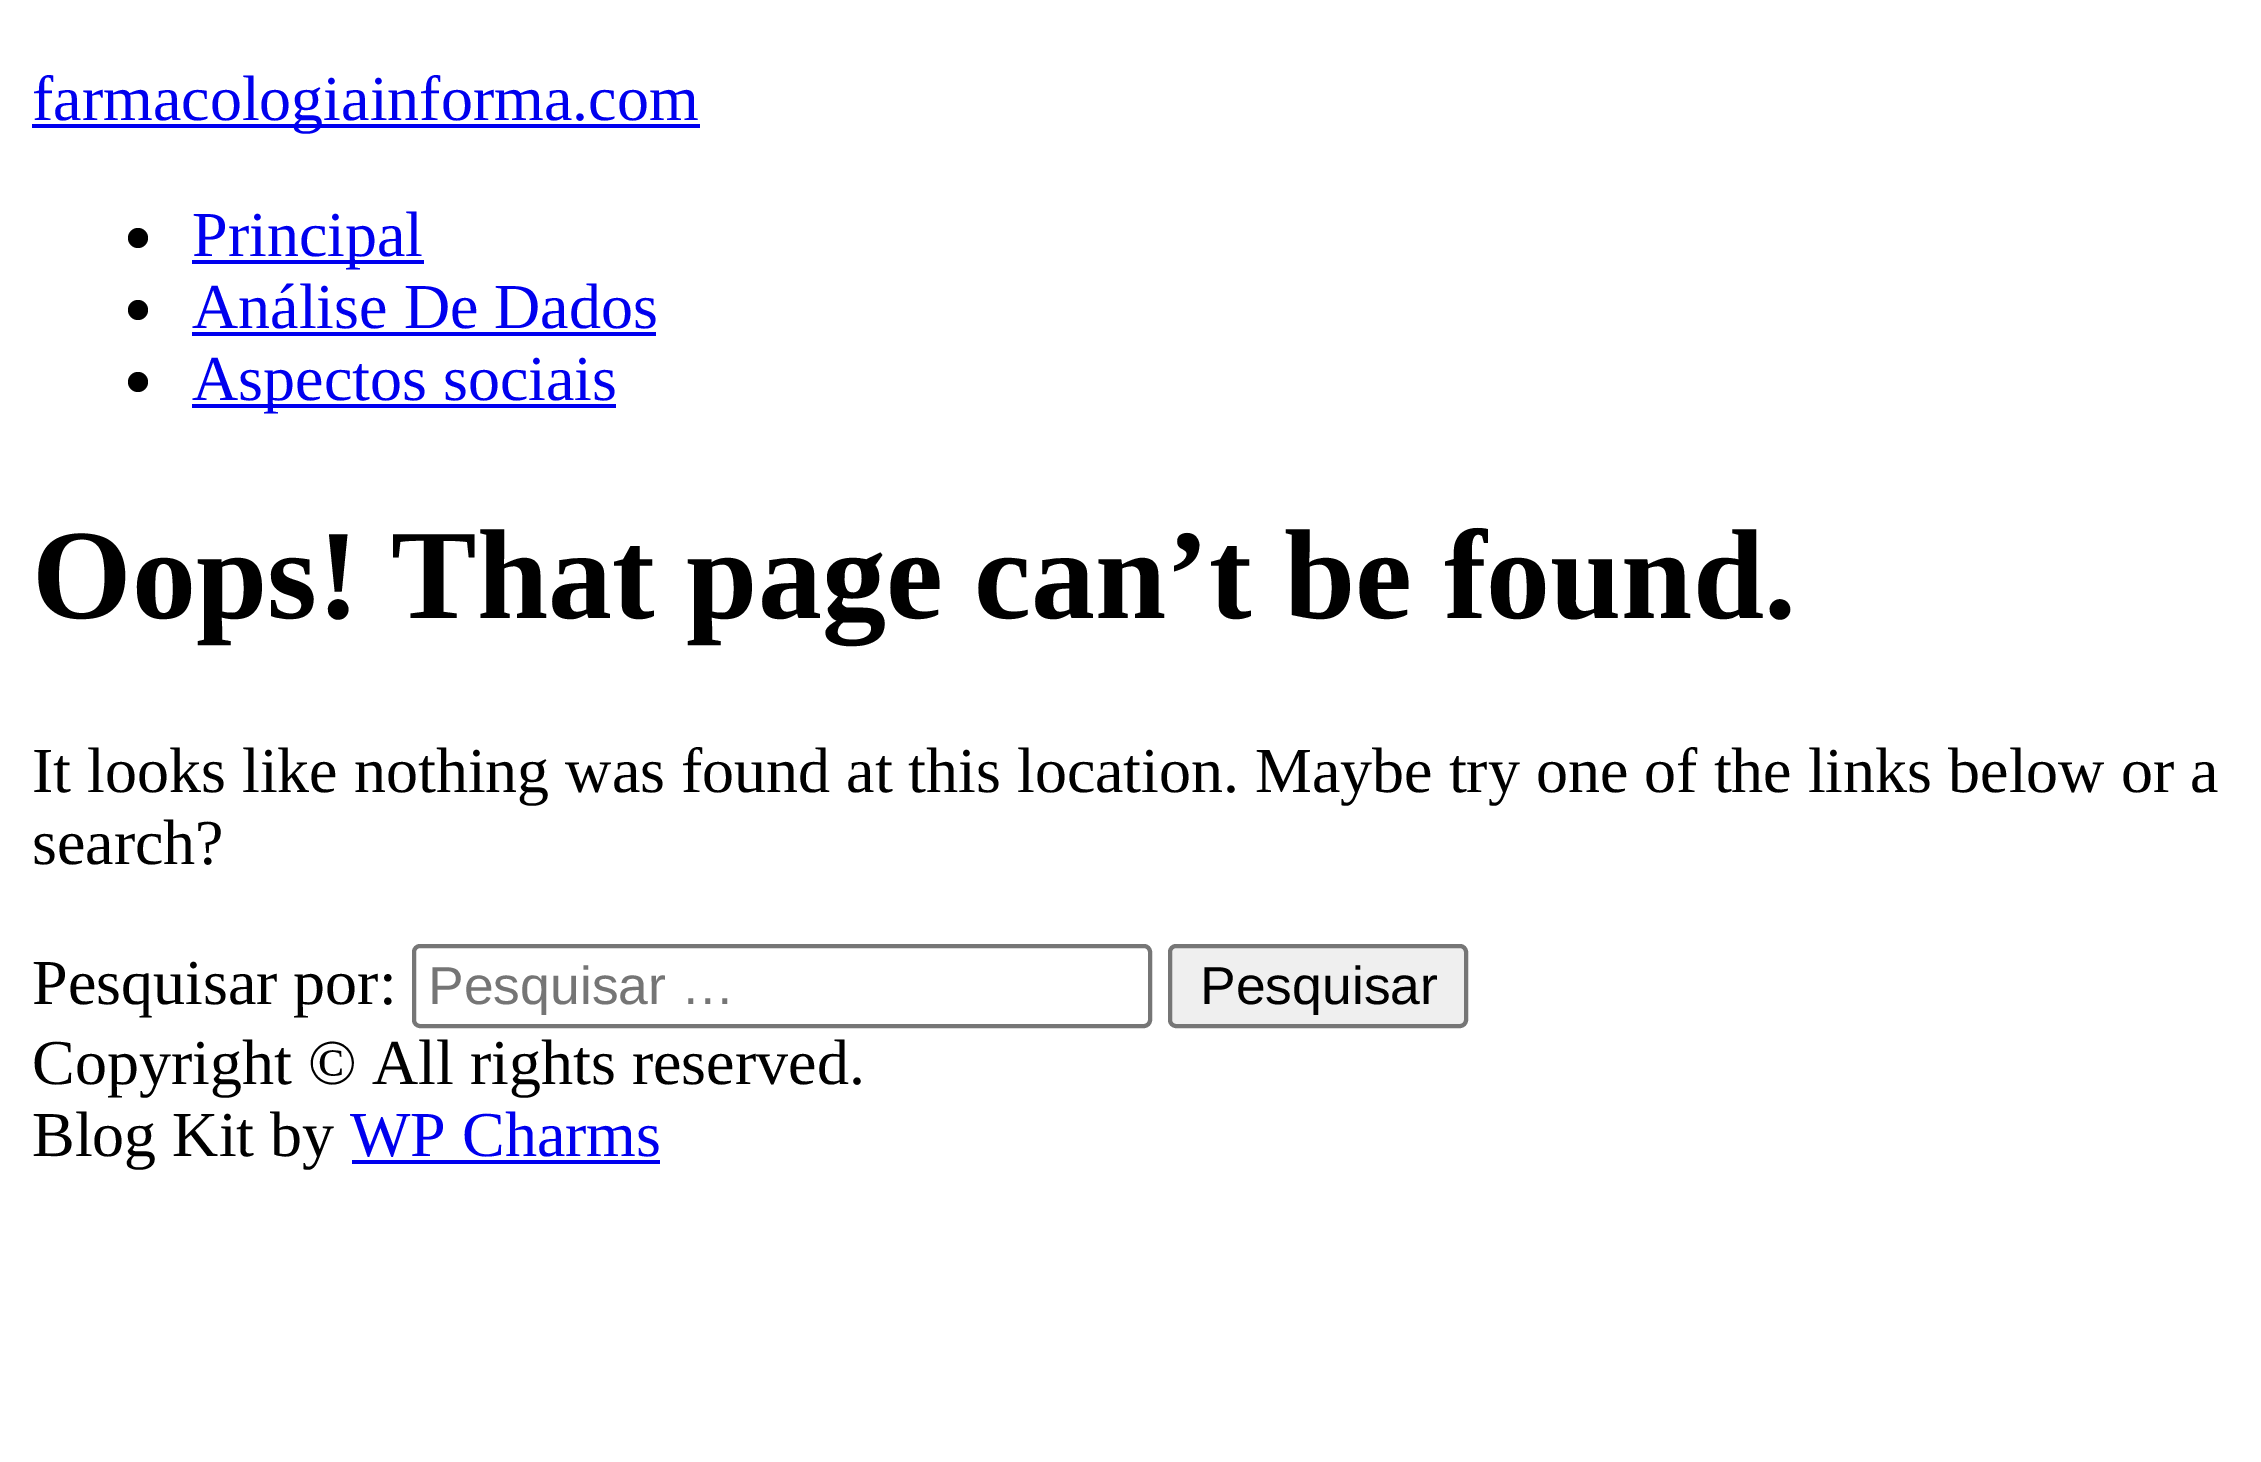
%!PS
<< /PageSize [2261 1462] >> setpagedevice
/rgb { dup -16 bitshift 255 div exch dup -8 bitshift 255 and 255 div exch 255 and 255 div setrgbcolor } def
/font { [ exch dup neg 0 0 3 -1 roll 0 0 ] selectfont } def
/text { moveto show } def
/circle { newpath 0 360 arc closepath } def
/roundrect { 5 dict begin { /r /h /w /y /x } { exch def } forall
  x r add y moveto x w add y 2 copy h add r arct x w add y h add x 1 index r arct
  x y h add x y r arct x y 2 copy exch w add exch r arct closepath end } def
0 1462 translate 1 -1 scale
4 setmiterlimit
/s1 { /LiberationSerif-Regular 64 font 16#0000EE rgb } def
/s2 { /LiberationSerif-Bold 128 font 16#000000 rgb } def
/s3 { /LiberationSerif-Regular 64 font 16#000000 rgb } def
/s4 { /LiberationSans-Regular 53.5 font 16#757575 rgb } def
/s5 { /LiberationSans-Regular 53.5 font 16#000000 rgb } def
16#FFFFFF rgb
0 0 2261 1462 rectfill
16#0000EE rgb
32 124 668 4 rectfill
s1
(farmacologiainforma.com) 32 120 text
16#000000 rgb
138 238 10 circle fill
16#0000EE rgb
192 260 232 4 rectfill
(Principal) 192 256 text
16#000000 rgb
138 310 10 circle fill
s1
(Análise De Dados) 192 328 text
192 332 464 4 rectfill
16#000000 rgb
138 382 10 circle fill
16#0000EE rgb
192 404 424 4 rectfill
(Aspectos sociais) 192 400 text
s2
(Oops! That page can’t be found.) 32 618 text
s3
(It looks like nothing was found at this location. Maybe try one of the links below or a) 32 792 text
(search?) 32 864 text
(Pesquisar por:) 32 1004 text
16#767676 rgb
4 setlinewidth
414 946 736 80 6 roundrect stroke
s4
(Pesquisar …) 428 1004 text
16#EFEFEF rgb
1170 946 296 80 6 roundrect gsave fill grestore
16#767676 rgb
stroke
s5
(Pesquisar) 1200 1004 text
s3
(Copyright © All rights reserved.) 32 1084 text
(Blog Kit by) 32 1156 text
s1
(WP Charms) 350 1156 text
352 1160 308 4 rectfill
showpage
